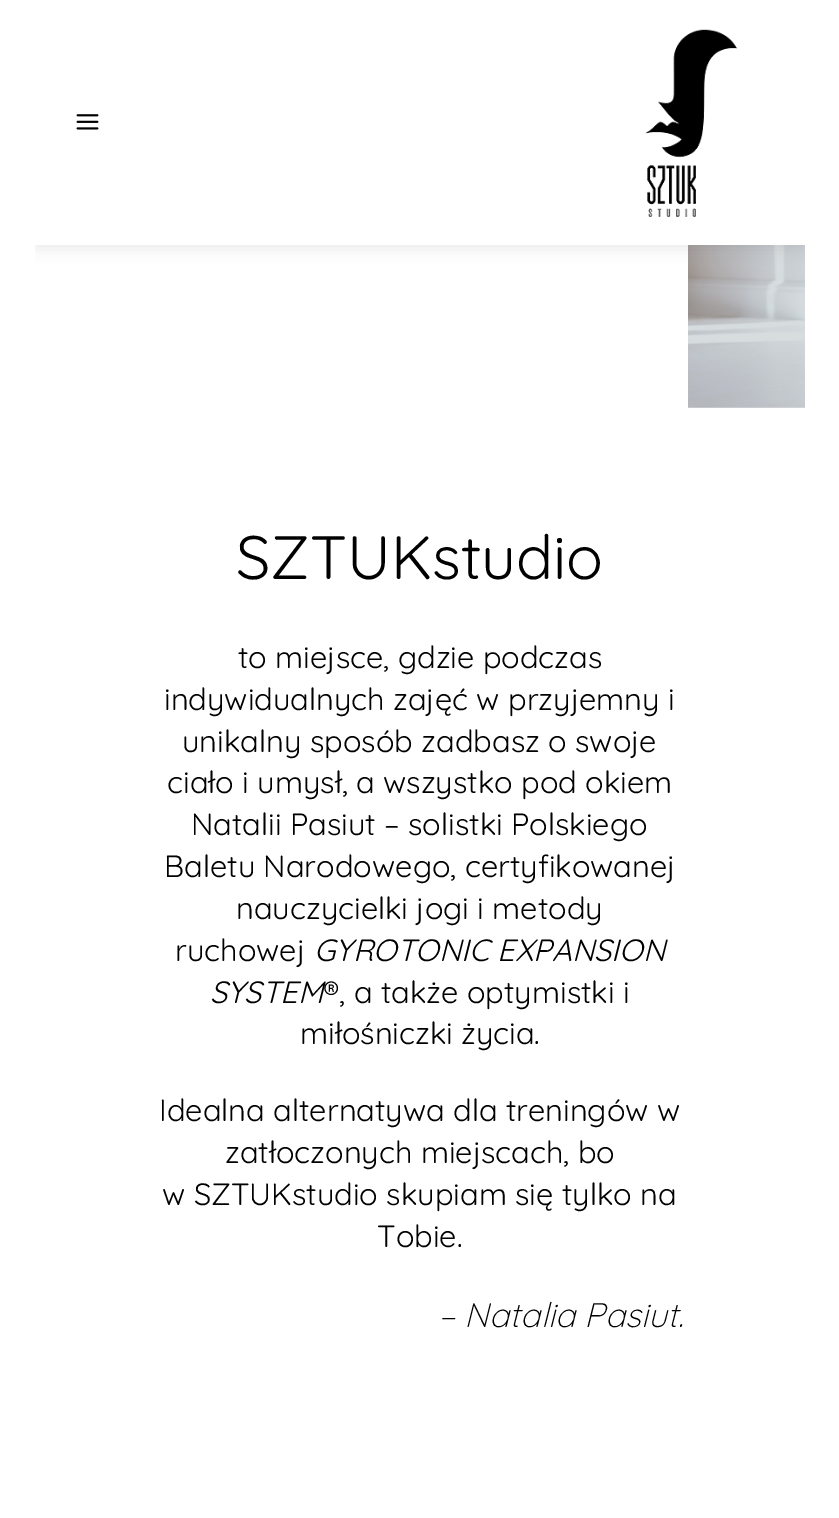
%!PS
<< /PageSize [839 1518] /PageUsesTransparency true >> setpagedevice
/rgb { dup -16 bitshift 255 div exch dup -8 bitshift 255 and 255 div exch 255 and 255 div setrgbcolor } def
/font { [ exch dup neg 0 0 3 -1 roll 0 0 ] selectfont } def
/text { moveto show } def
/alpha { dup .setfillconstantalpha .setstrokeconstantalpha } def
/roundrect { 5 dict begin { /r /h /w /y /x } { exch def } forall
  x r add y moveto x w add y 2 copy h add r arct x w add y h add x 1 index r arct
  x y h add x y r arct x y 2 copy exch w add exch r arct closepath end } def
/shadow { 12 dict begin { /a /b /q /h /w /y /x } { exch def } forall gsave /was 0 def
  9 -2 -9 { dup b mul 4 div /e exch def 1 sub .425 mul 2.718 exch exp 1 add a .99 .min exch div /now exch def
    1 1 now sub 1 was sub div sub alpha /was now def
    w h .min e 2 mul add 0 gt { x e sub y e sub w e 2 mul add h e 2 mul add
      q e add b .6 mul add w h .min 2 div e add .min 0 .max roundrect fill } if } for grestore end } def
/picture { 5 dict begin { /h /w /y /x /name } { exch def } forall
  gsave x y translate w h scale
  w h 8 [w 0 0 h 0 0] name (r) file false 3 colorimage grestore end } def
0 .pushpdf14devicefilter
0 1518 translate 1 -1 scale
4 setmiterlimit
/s1 { /Quicksand-Regular 61.25 font 16#000000 rgb } def
/s2 { /Quicksand-Regular 30.75 font 16#000000 rgb } def
/s3 { /Quicksand-Italic 30.75 font 16#000000 rgb } def
/s4 { /Quicksand-LightItalic 34 font 16#000000 rgb } def
16#FFFFFF rgb
0 0 839 1518 rectfill
(pic3.raw) 688 245 117 163 picture
gsave
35 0 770 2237 rectclip
16#000000 rgb
35 4 770 245 0 7 0.07 shadow
grestore
35 0 770 245 rectfill
(pic1.raw) 76 114 23 16 picture
(pic2.raw) 645 29 92 188 picture
s1
(SZTUKstudio) 236 579 text
s2
(to miejsce, gdzie podczas) 238 668 text
(indywidualnych zajęć w przyjemny i) 164 710 text
(unikalny sposób zadbasz o swoje) 182 752 text
(ciało i umysł, a wszystko pod okiem) 167 793 text
(Natalii Pasiut – solistki Polskiego) 191 835 text
(Baletu Narodowego, certyfikowanej) 164 877 text
(nauczycielki jogi i metody) 236 919 text
(ruchowej) 175 961 text
s3
(GYROTONIC EXPANSION) 314 961 text
(SYSTEM) 210 1003 text
s2
(®, a także optymistki i) 323 1003 text
(miłośniczki życia.) 300 1044 text
(Idealna alternatywa dla treningów w) 159 1121 text
(zatłoczonych miejscach, bo) 225 1163 text
(w SZTUKstudio skupiam się tylko na) 162 1205 text
(Tobie.) 377 1247 text
s4
(– Natalia Pasiut.) 438 1327 text
.poppdf14devicefilter showpage
